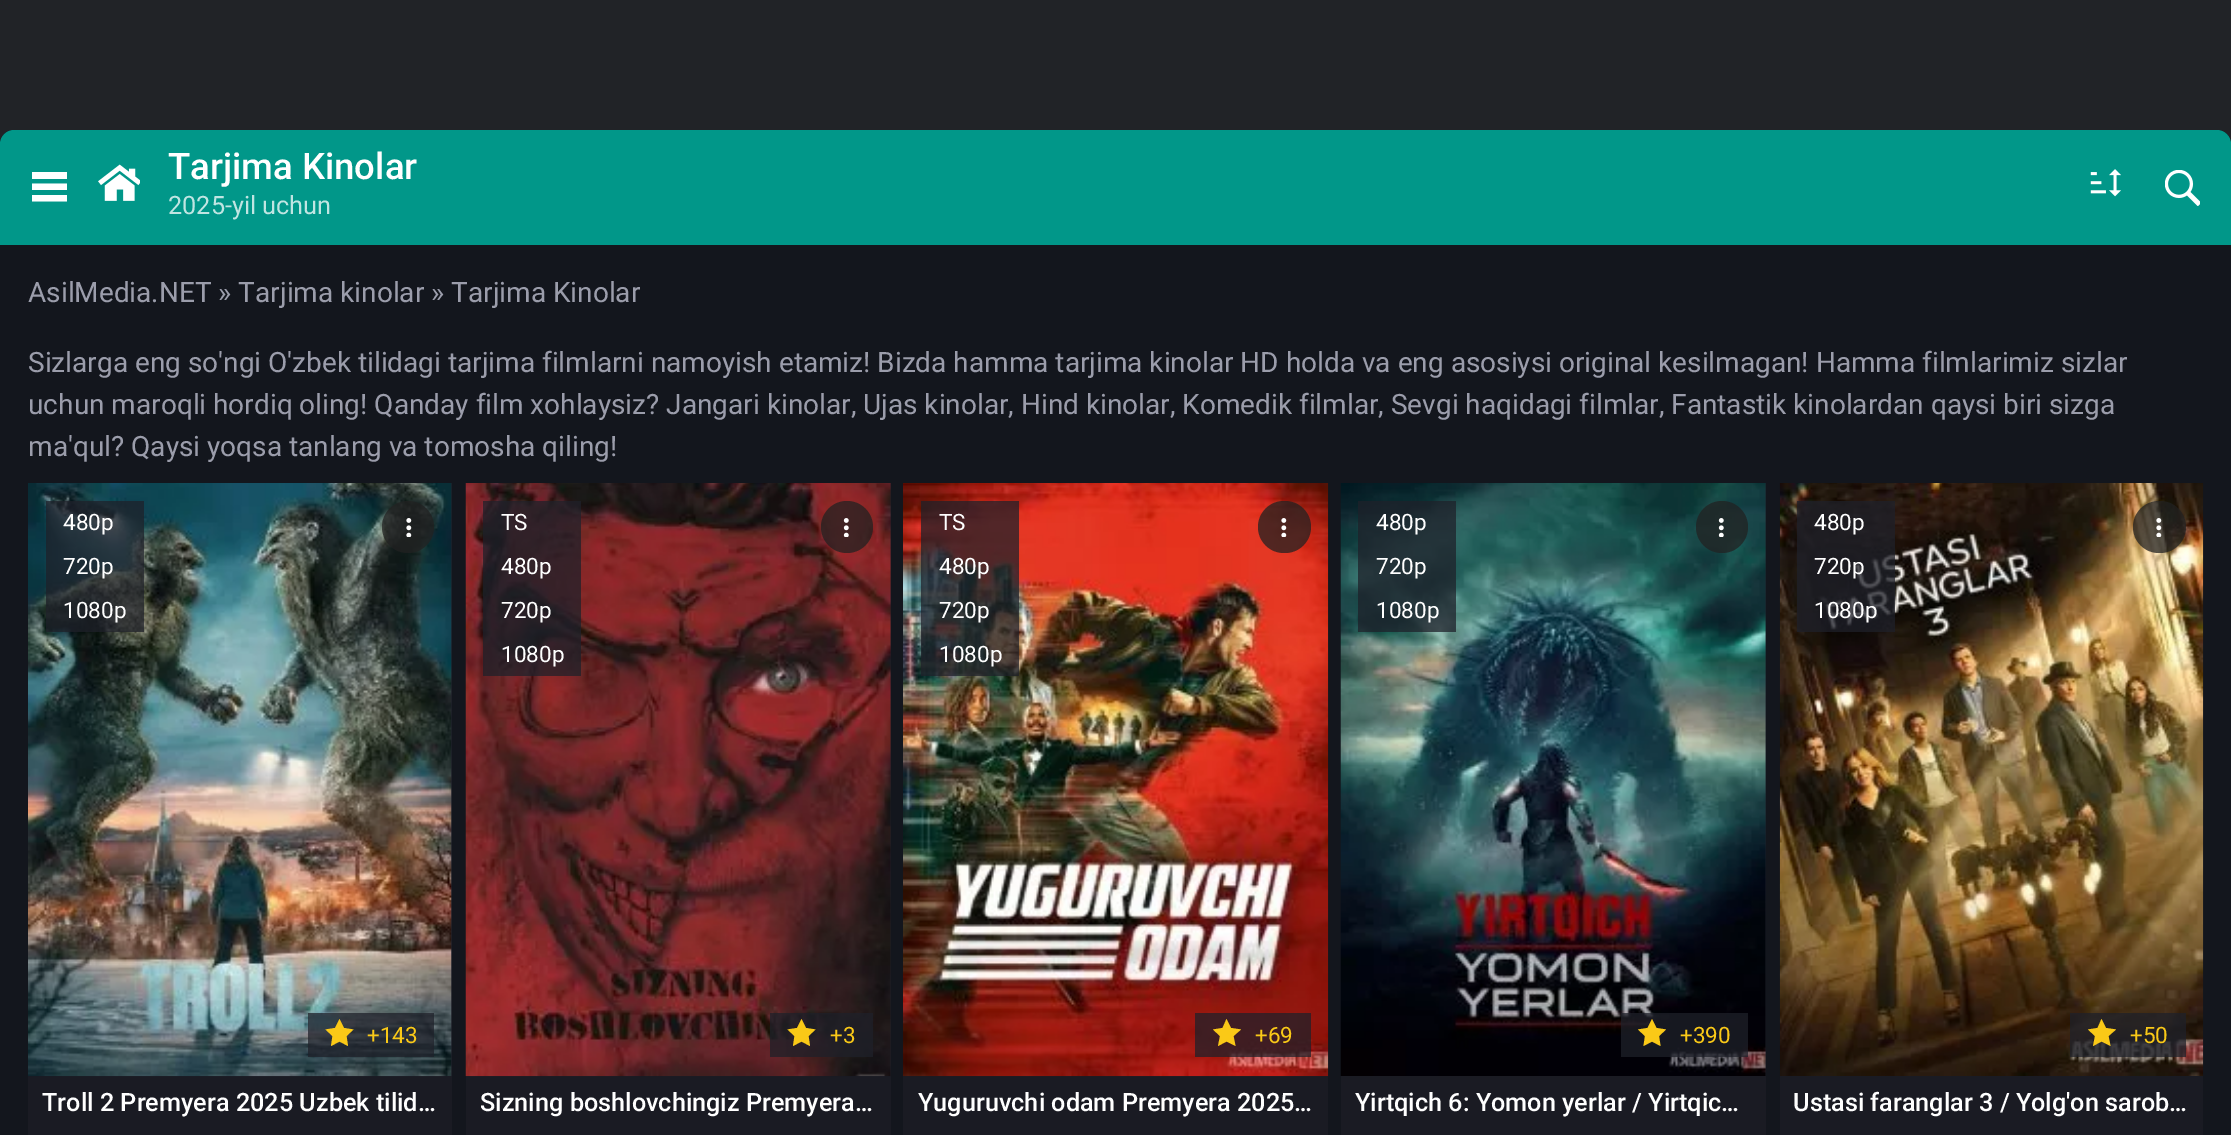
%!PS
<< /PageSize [2231 1135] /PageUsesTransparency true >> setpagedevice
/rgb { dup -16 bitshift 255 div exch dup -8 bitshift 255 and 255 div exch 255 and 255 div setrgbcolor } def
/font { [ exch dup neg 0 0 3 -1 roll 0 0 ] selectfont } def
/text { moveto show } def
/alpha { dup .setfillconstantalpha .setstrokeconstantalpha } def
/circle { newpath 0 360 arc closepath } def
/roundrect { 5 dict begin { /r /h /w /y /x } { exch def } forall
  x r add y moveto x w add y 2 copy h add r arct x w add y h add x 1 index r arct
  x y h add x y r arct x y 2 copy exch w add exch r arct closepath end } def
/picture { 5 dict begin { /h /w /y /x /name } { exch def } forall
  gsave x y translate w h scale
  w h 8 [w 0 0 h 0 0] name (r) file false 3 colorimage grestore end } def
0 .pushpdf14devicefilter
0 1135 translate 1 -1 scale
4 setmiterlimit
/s1 { /Roboto-Medium 36.5 font 16#FFFFFF rgb } def
/s2 { /Roboto-Regular 25.25 font 16#C0E5E2 rgb } def
/s3 { /Roboto-Regular 28 font 16#9B9DAB rgb } def
/s4 { /Roboto-Regular 22.5 font 16#FFFFFF rgb } def
/s5 { /Roboto-Regular 22.5 font 16#FAC917 rgb } def
/s6 { /Roboto-Medium 25.25 font 16#FFFFFF rgb } def
16#212327 rgb
0 0 2231 1135 rectfill
16#13161D rgb
0 130 2231 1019 14 roundrect fill
16#019789 rgb
14 130 moveto 2217 130 lineto 2224.5 130 2231 136.5 2231 144 curveto 2231 245 lineto 0 245 lineto 0 144 lineto 0 136.5 6.5 130 14 130 curveto closepath fill
gsave
32 170 35 36 rectclip
16#FFFFFF rgb
31.5 172 moveto 68 172 lineto 68 179 lineto 31.5 179 lineto closepath 31.5 183.5 moveto 68 183.5 lineto 68 190 lineto 31.5 190 lineto closepath 31.5 195 moveto 68 195 lineto 68 201.5 lineto 31.5 201.5 lineto closepath fill
grestore
(pic1.raw) 98 164 42 37 picture
s1
(Tarjima Kinolar) 168 179 text
s2
(2025-yil uchun) 168 214 text
(pic2.raw) 2090 169 31 28 picture
(pic3.raw) 2165 170 35 36 picture
s3
(AsilMedia.NET » Tarjima kinolar » Tarjima Kinolar) 28 302 text
(Sizlarga eng so'ngi O'zbek tilidagi tarjima filmlarni namoyish etamiz! Bizda hamma tarjima kinolar HD holda va eng asosiysi original kesilmagan! Hamma filmlarimiz sizlar) 28 372 text
(uchun maroqli hordiq oling! Qanday film xohlaysiz? Jangari kinolar, Ujas kinolar, Hind kinolar, Komedik filmlar, Sevgi haqidagi filmlar, Fantastik kinolardan qaysi biri sizga) 28 414 text
(ma'qul? Qaysi yoqsa tanlang va tomosha qiling!) 28 456 text
16#1A1B23 rgb
28 1076 424 59 rectfill
16#1E2029 rgb
451 483 1 593 rectfill
(pic5.raw) 28 483 424 594 picture
0.75 alpha
16#212121 rgb
408 527 26 circle fill
1 alpha
(pic4.raw) 406 518 6 19 picture
0.74 alpha
16#1E2029 rgb
46 501 98 43 rectfill
1 alpha
s4
(480p) 63 530 text
0.74 alpha
16#1E2029 rgb
46 544 98 44 rectfill
1 alpha
s4
(720p) 63 574 text
0.74 alpha
16#1E2029 rgb
46 588 98 44 rectfill
1 alpha
s4
(1080p) 63 618 text
0.74 alpha
16#1E2029 rgb
308 1013 126 44 rectfill
1 alpha
16#FAC917 rgb
339.5 1019 moveto 344 1028 lineto 353.5 1029.5 lineto 346.5 1036 lineto 348 1046 lineto 339.5 1041.5 lineto 331 1046 lineto 332.5 1036 lineto 325.5 1029.5 lineto 335 1028 lineto closepath fill
(+143) 367 1043 text
s6
(Troll 2 Premyera 2025 Uzbek tilid…) 42 1111 text
16#1A1B23 rgb
466 1076 425 59 rectfill
16#1E2029 rgb
890 483 1 593 rectfill
(pic7.raw) 465 483 426 594 picture
0.75 alpha
16#212121 rgb
847 527 26 circle fill
1 alpha
(pic6.raw) 843 518 6 19 picture
0.74 alpha
16#1E2029 rgb
483 501 98 43 rectfill
1 alpha
s4
(TS) 501 530 text
0.74 alpha
16#1E2029 rgb
483 544 98 44 rectfill
1 alpha
s4
(480p) 501 574 text
0.74 alpha
16#1E2029 rgb
483 588 98 44 rectfill
1 alpha
s4
(720p) 501 618 text
0.74 alpha
16#1E2029 rgb
483 632 98 44 rectfill
1 alpha
s4
(1080p) 501 662 text
0.74 alpha
16#1E2029 rgb
770 1013 103 44 rectfill
1 alpha
16#FAC917 rgb
801.5 1019 moveto 806 1028 lineto 815.5 1029.5 lineto 808.5 1036 lineto 810 1046 lineto 801.5 1041.5 lineto 793 1046 lineto 794.5 1036 lineto 787.5 1029.5 lineto 797 1028 lineto closepath fill
(+3) 830 1043 text
s6
(Sizning boshlovchingiz Premyera…) 480 1111 text
16#1A1B23 rgb
903 1076 425 59 rectfill
(pic9.raw) 903 483 426 594 picture
0.75 alpha
16#212121 rgb
1258 501 53 52 26 roundrect fill
1 alpha
(pic8.raw) 1281 518 6 19 picture
0.74 alpha
16#1E2029 rgb
921 501 98 43 rectfill
1 alpha
s4
(TS) 939 530 text
0.74 alpha
16#1E2029 rgb
921 544 98 44 rectfill
1 alpha
s4
(480p) 939 574 text
0.74 alpha
16#1E2029 rgb
921 588 98 44 rectfill
1 alpha
s4
(720p) 939 618 text
0.74 alpha
16#1E2029 rgb
921 632 98 44 rectfill
1 alpha
s4
(1080p) 939 662 text
0.74 alpha
16#1E2029 rgb
1195 1013 116 44 rectfill
1 alpha
16#FAC917 rgb
1226.5 1019 moveto 1231 1028 lineto 1241 1029.5 lineto 1233.5 1036 lineto 1235.5 1046 lineto 1226.5 1041.5 lineto 1218 1046 lineto 1220 1036 lineto 1213 1029.5 lineto 1222.5 1028 lineto closepath fill
(+69) 1255 1043 text
s6
(Yuguruvchi odam Premyera 2025…) 918 1111 text
16#1A1B23 rgb
1341 1076 425 59 rectfill
16#1E2029 rgb
1765 483 1 593 rectfill
(pic11.raw) 1340 483 426 593 picture
0.75 alpha
16#212121 rgb
1722 527 26 circle fill
1 alpha
(pic10.raw) 1718 518 6 19 picture
0.74 alpha
16#1E2029 rgb
1358 501 98 43 rectfill
1 alpha
s4
(480p) 1376 530 text
0.74 alpha
16#1E2029 rgb
1358 544 98 44 rectfill
1 alpha
s4
(720p) 1376 574 text
0.74 alpha
16#1E2029 rgb
1358 588 98 44 rectfill
1 alpha
s4
(1080p) 1376 618 text
0.74 alpha
16#1E2029 rgb
1621 1013 127 44 rectfill
1 alpha
16#FAC917 rgb
1652 1019 moveto 1656.5 1028 lineto 1666 1029.5 lineto 1659 1036 lineto 1660.5 1046 lineto 1652 1041.5 lineto 1643.5 1046 lineto 1645 1036 lineto 1638 1029.5 lineto 1647.5 1028 lineto closepath fill
(+390) 1680 1043 text
s6
(Yirtqich 6: Yomon yerlar / Yirtqic…) 1355 1111 text
16#1A1B23 rgb
1780 1076 423 59 rectfill
(pic13.raw) 1779 483 425 593 picture
0.75 alpha
16#212121 rgb
2133 501 53 52 26 roundrect fill
1 alpha
(pic12.raw) 2156 518 6 19 picture
0.74 alpha
16#1E2029 rgb
1797 501 98 43 rectfill
1 alpha
s4
(480p) 1814 530 text
0.74 alpha
16#1E2029 rgb
1797 544 98 44 rectfill
1 alpha
s4
(720p) 1814 574 text
0.74 alpha
16#1E2029 rgb
1797 588 98 44 rectfill
1 alpha
s4
(1080p) 1814 618 text
0.74 alpha
16#1E2029 rgb
2070 1013 116 44 rectfill
1 alpha
16#FAC917 rgb
2101.5 1019 moveto 2106 1028 lineto 2116 1029.5 lineto 2108.5 1036 lineto 2110.5 1046 lineto 2101.5 1041.5 lineto 2093 1046 lineto 2095 1036 lineto 2088 1029.5 lineto 2097.5 1028 lineto closepath fill
(+50) 2130 1043 text
s6
(Ustasi faranglar 3 / Yolg'on sarob…) 1793 1111 text
.poppdf14devicefilter showpage
